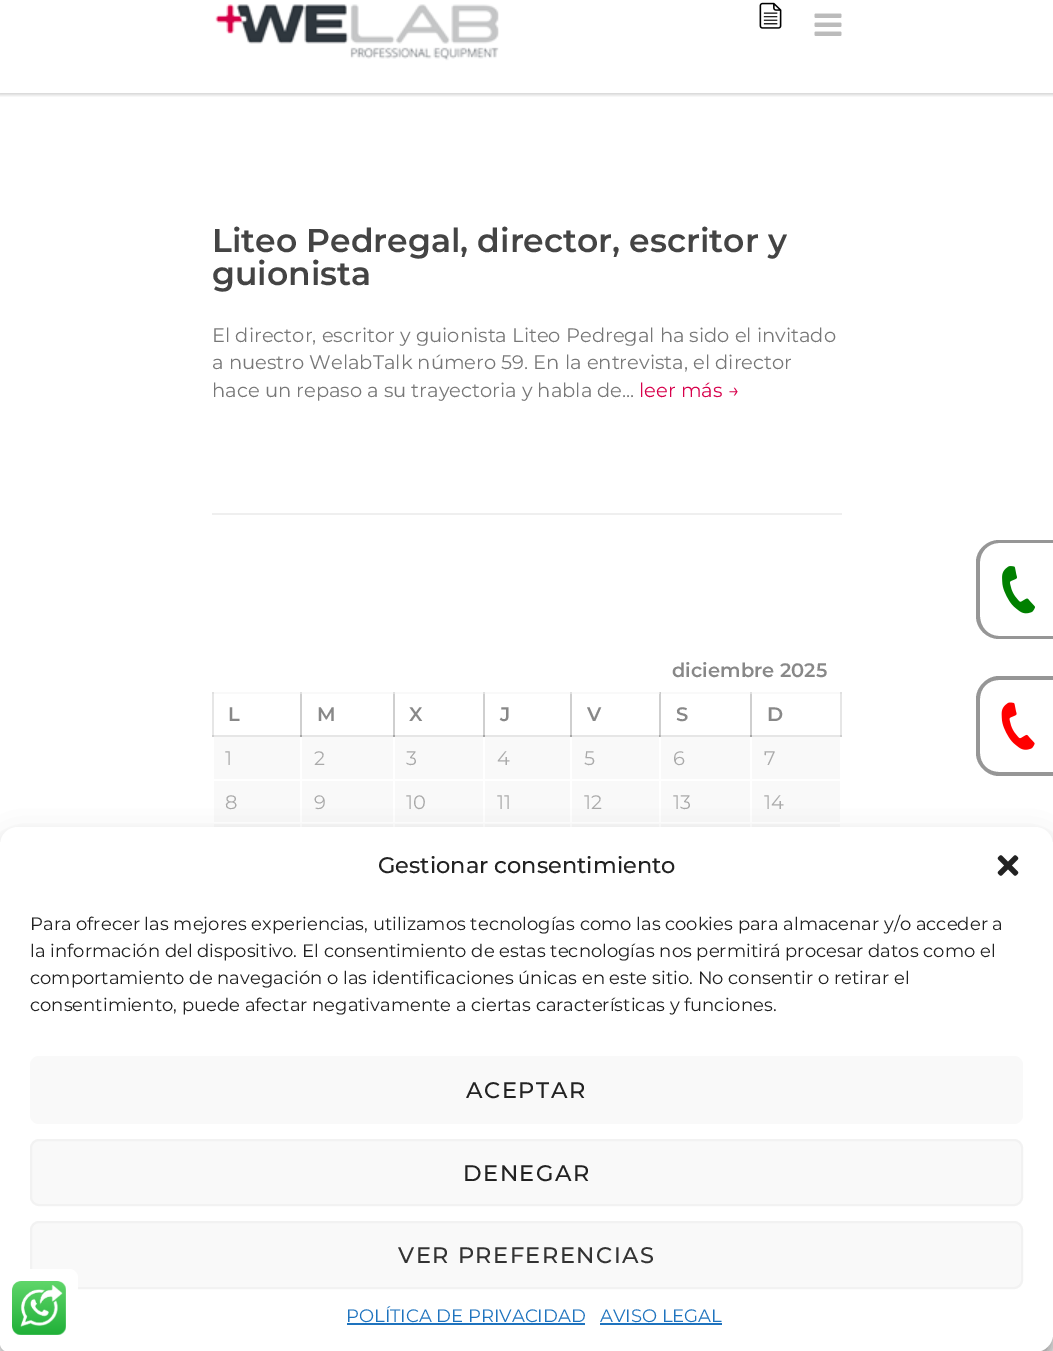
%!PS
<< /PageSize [1053 1351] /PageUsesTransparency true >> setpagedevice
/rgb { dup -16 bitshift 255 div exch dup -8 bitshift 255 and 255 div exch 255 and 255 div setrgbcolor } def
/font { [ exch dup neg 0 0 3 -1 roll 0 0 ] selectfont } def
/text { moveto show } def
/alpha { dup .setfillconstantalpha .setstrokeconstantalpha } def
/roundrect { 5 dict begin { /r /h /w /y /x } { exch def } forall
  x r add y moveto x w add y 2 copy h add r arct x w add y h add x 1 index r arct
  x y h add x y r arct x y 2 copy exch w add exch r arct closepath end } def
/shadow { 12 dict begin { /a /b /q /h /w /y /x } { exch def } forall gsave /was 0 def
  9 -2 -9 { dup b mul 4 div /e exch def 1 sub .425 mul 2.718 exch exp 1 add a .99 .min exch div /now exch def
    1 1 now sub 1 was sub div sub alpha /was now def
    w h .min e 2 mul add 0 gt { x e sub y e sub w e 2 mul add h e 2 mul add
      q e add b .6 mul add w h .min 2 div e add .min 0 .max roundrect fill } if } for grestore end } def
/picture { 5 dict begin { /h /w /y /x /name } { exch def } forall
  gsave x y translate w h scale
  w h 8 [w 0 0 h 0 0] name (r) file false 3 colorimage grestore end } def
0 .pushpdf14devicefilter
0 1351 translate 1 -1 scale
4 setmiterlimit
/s1 { /Montserrat-SemiBold 33 font 16#444444 rgb } def
/s2 { /Montserrat-Regular 19.5 font 16#777777 rgb } def
/s3 { /Montserrat-Regular 19.5 font 16#D7004B rgb } def
/s4 { /Montserrat-SemiBold 19.5 font 16#888888 rgb } def
/s5 { /Montserrat-Regular 19.5 font 16#AAAAAA rgb } def
/s6 { /Montserrat-Medium 22.5 font 16#222222 rgb } def
/s7 { /Montserrat-Regular 18 font 16#222222 rgb } def
/s8 { /Montserrat-Regular 18 font 16#1E73BE rgb } def
16#FFFFFF rgb
0 0 1053 1351 rectfill
16#E6E6E6 rgb
212 692 2 45 rectfill
16#CFCFCF rgb
300 692 2 45 rectfill
393 692 2 45 rectfill
483 692 2 45 rectfill
570 692 2 45 rectfill
659 692 2 45 rectfill
750 692 2 45 rectfill
16#E6E6E6 rgb
840 692 2 45 rectfill
gsave
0 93 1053 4 rectclip
16#000000 rgb
-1 -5 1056 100 0 1.5 0.16 shadow
grestore
(pic1.raw) 215 4 284 57 picture
(pic2.raw) 759 2 23 27 picture
(pic3.raw) 814 13 28 23 picture
16#EFEFEF rgb
212 513 630 2 rectfill
s1
(Liteo Pedregal, director, escritor y) 212 252 text
(guionista) 212 285 text
s2
(El director, escritor y guionista Liteo Pedregal ha sido el invitado) 212 342 text
(a nuestro WelabTalk número 59. En la entrevista, el director) 212 369 text
(hace un repaso a su trayectoria y habla de...) 212 397 text
s3
(leer más →) 639 397 text
s4
(diciembre 2025) 672 677 text
16#F9F9F9 rgb
659 692 183 2 rectfill
16#CACACA rgb
659 692 2 2 rectfill
16#F9F9F9 rgb
212 692 448 2 rectfill
16#E0E0E0 rgb
212 692 2 2 rectfill
300 692 2 2 rectfill
s4
(L) 228 721 text
16#E0E0E0 rgb
393 692 2 2 rectfill
s4
(M) 317 721 text
16#E0E0E0 rgb
483 692 2 2 rectfill
s4
(X) 409 721 text
16#E0E0E0 rgb
570 692 2 2 rectfill
s4
(J) 500 721 text
16#E0E0E0 rgb
659 692 1 2 rectfill
s4
(V) 587 721 text
16#E0E0E0 rgb
750 692 2 2 rectfill
s4
(S) 676 721 text
16#E0E0E0 rgb
840 692 2 2 rectfill
s4
(D) 767 721 text
16#F9F9F9 rgb
214 737 86 42 rectfill
16#E6E6E6 rgb
750 735 92 2 rectfill
16#FFFFFF rgb
750 735 2 2 rectfill
16#E6E6E6 rgb
659 735 93 2 rectfill
16#FFFFFF rgb
659 735 2 2 rectfill
16#BABABA rgb
659 735 2 2 rectfill
16#E6E6E6 rgb
570 735 90 2 rectfill
16#FFFFFF rgb
570 735 2 2 rectfill
16#E6E6E6 rgb
483 735 89 2 rectfill
16#FFFFFF rgb
483 735 2 2 rectfill
16#E6E6E6 rgb
393 735 92 2 rectfill
16#FFFFFF rgb
393 735 2 2 rectfill
16#E6E6E6 rgb
300 735 95 2 rectfill
16#FFFFFF rgb
300 735 2 2 rectfill
16#E6E6E6 rgb
212 735 90 2 rectfill
16#A7A7A7 rgb
300 735 2 2 rectfill
16#FFFFFF rgb
212 735 2 2 rectfill
16#CFCFCF rgb
212 735 2 2 rectfill
s5
(1) 225 765 text
16#F9F9F9 rgb
302 737 91 42 rectfill
16#A7A7A7 rgb
393 735 2 2 rectfill
s5
(2) 314 765 text
16#F9F9F9 rgb
395 737 88 42 rectfill
16#A7A7A7 rgb
483 735 2 2 rectfill
s5
(3) 406 765 text
16#F9F9F9 rgb
485 737 85 42 rectfill
16#A7A7A7 rgb
570 735 2 2 rectfill
s5
(4) 497 765 text
16#F9F9F9 rgb
572 737 87 42 rectfill
16#A7A7A7 rgb
659 735 1 2 rectfill
s5
(5) 584 765 text
16#F9F9F9 rgb
661 737 89 42 rectfill
16#A7A7A7 rgb
750 735 2 2 rectfill
s5
(6) 673 765 text
16#F9F9F9 rgb
752 737 88 42 rectfill
16#FFFFFF rgb
840 735 2 2 rectfill
16#CFCFCF rgb
840 735 2 2 rectfill
s5
(7) 764 765 text
16#F9F9F9 rgb
214 781 86 41 rectfill
s5
(8) 225 809 text
16#F9F9F9 rgb
302 781 91 41 rectfill
s5
(9) 314 809 text
16#F9F9F9 rgb
395 781 88 41 rectfill
s5
(10) 406 809 text
16#F9F9F9 rgb
485 781 85 41 rectfill
s5
(11) 497 809 text
16#F9F9F9 rgb
572 781 87 41 rectfill
s5
(12) 584 809 text
16#F9F9F9 rgb
661 781 89 41 rectfill
s5
(13) 673 809 text
16#F9F9F9 rgb
752 781 88 41 rectfill
s5
(14) 764 809 text
16#F9F9F9 rgb
214 824 86 3 rectfill
302 824 91 3 rectfill
395 824 88 3 rectfill
485 824 85 3 rectfill
572 824 87 3 rectfill
661 824 89 3 rectfill
752 824 88 3 rectfill
16#F5F5F5 rgb
0 1334 1053 17 rectfill
16#969696 rgb
999 540 moveto 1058 540 lineto 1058 639 lineto 999 639 lineto 987 639 976 629 976 616 curveto 976 562 lineto 976 550 987 540 999 540 curveto closepath 999 543 moveto 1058 543 lineto 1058 636 lineto 999 636 lineto 988 636 980 627 980 616 curveto 980 562 lineto 980 552 988 543 999 543 curveto closepath eofill
(pic4.raw) 1002 566 33 48 picture
999 676 moveto 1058 676 lineto 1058 776 lineto 999 776 lineto 987 776 976 765 976 753 curveto 976 699 lineto 976 687 987 676 999 676 curveto closepath 999 680 moveto 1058 680 lineto 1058 772 lineto 999 772 lineto 988 772 980 764 980 753 curveto 980 699 lineto 980 688 988 680 999 680 curveto closepath eofill
(pic5.raw) 1001 702 34 48 picture
16#000000 rgb
0 836 1053 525 18 4.5 0.23 shadow
0 842 1053 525 18 15 0.19 shadow
16#FFFFFF rgb
0 827 1053 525 18 roundrect fill
s6
(Gestionar consentimiento) 378 873 text
(pic6.raw) 997 855 22 21 picture
s7
(Para ofrecer las mejores experiencias, utilizamos tecnologías como las cookies para almacenar y/o acceder a) 30 930 text
(la información del dispositivo. El consentimiento de estas tecnologías nos permitirá procesar datos como el) 30 957 text
(comportamiento de navegación o las identificaciones únicas en este sitio. No consentir o retirar el) 30 984 text
(consentimiento, puede afectar negativamente a ciertas características y funciones.) 30 1011 text
16#F9F9F9 rgb
30 1056 993 68 9 roundrect fill
/Montserrat-Medium 22.5 font
16#222222 rgb
466 1098 moveto 1.5 0 (ACEPTAR) ashow
16#F9F9F9 rgb
31 1140 991 65 8 roundrect gsave fill grestore
16#F2F2F2 rgb
2 setlinewidth
stroke
16#222222 rgb
463 1181 moveto 1.5 0 (DENEGAR) ashow
16#F9F9F9 rgb
31 1222 991 66 8 roundrect gsave fill grestore
16#F2F2F2 rgb
stroke
16#333333 rgb
398 1263 moveto 1.5 0 (VER PREFERENCIAS) ashow
s8
(POLÍTICA DE PRIVACIDAD) 346 1322 text
347 1323 238 2 rectfill
(AVISO LEGAL) 600 1322 text
600 1323 122 2 rectfill
16#FFFFFF rgb
0 1269 78 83 9 roundrect fill
(pic7.raw) 12 1281 54 54 picture
.poppdf14devicefilter showpage
